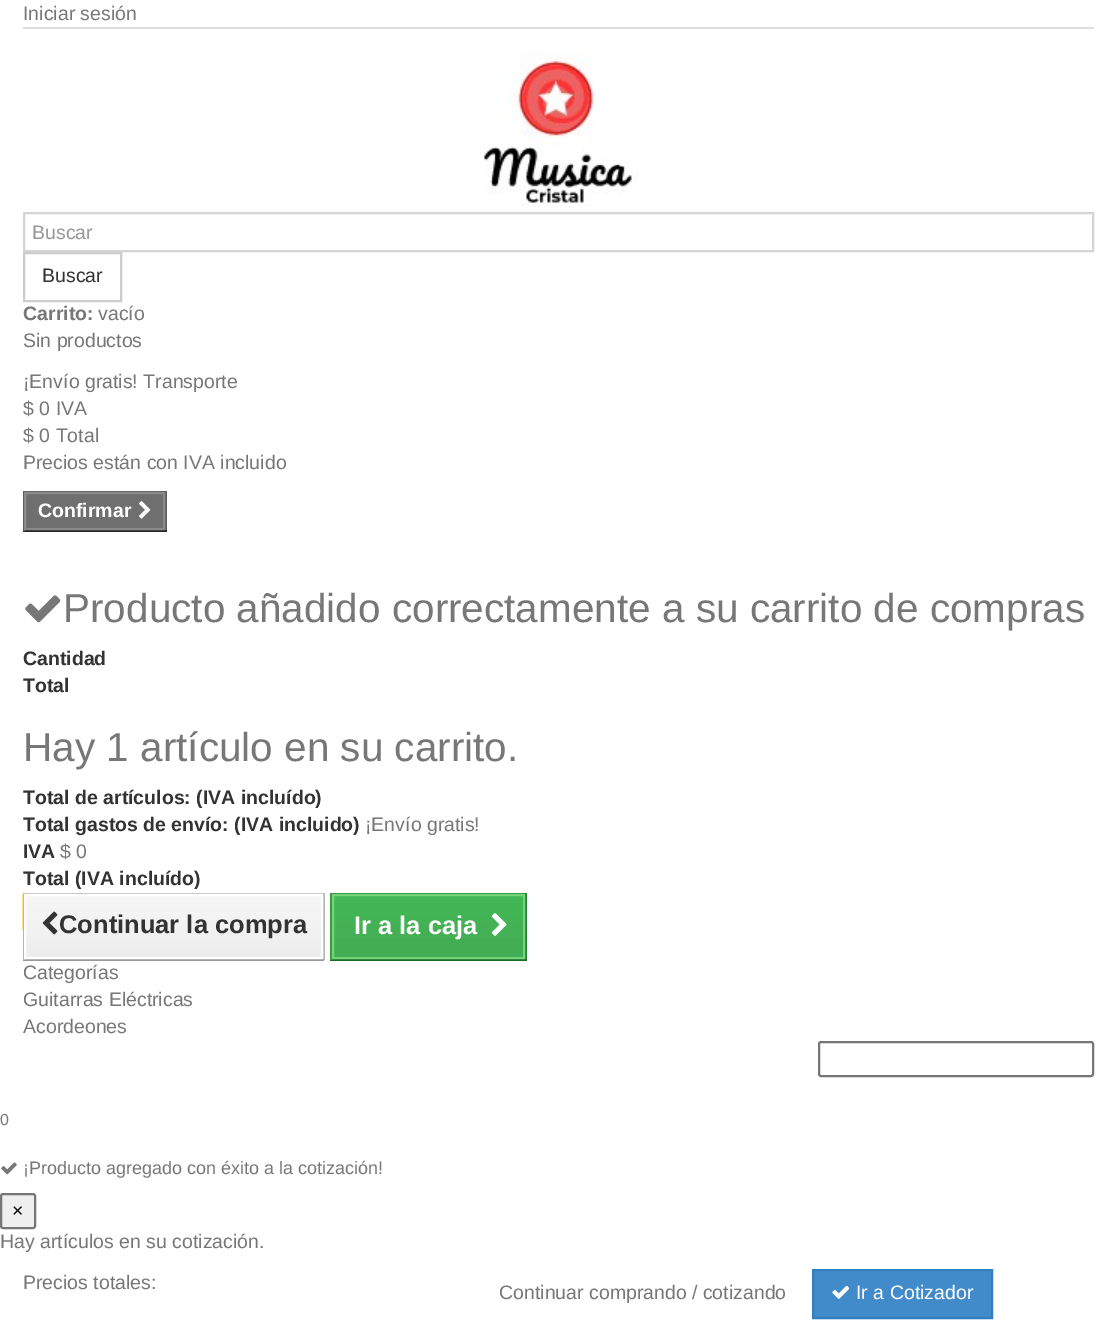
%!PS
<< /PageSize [1115 1342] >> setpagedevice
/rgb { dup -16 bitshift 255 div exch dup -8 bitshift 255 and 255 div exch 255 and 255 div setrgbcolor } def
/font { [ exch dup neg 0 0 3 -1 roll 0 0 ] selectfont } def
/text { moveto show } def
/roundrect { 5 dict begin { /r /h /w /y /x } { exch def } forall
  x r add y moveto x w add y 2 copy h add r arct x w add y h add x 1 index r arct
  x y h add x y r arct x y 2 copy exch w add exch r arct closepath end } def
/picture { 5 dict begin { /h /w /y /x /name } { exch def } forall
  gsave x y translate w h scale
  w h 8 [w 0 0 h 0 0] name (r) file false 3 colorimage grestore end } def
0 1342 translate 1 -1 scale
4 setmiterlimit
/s1 { /LiberationSans-Regular 19.5 font 16#777777 rgb } def
/s2 { /LiberationSans-Regular 19.5 font 16#999999 rgb } def
/s3 { /LiberationSans-Regular 19.5 font 16#333333 rgb } def
/s4 { /LiberationSans-Bold 19.5 font 16#777777 rgb } def
/s5 { /LiberationSans-Bold 19.5 font 16#FFFFFF rgb } def
/s6 { /LiberationSans-Regular 40.5 font 16#777777 rgb } def
/s7 { /LiberationSans-Bold 19.5 font 16#333333 rgb } def
/s8 { /LiberationSans-Bold 25.5 font 16#333333 rgb } def
/s9 { /LiberationSans-Bold 25.5 font 16#FFFFFF rgb } def
/s10 { /LiberationSans-Regular 16 font 16#777777 rgb } def
/s11 { /LiberationSans-Regular 18 font 16#777777 rgb } def
/s12 { /LiberationSans-Regular 19.5 font 16#000000 rgb } def
/s13 { /LiberationSans-Regular 19.5 font 16#FFFFFF rgb } def
16#FFFFFF rgb
0 0 1115 1342 rectfill
16#DDDDDD rgb
23 27 1071 2 rectfill
s1
(Iniciar sesión) 23 20 text
(pic1.raw) 484 51 155 156 picture
16#D6D4D4 rgb
2 setlinewidth
24 213 1069 38 rectstroke
s2
(Buscar) 32 239 text
16#CCCCCC rgb
24 253 97 48 rectstroke
s3
(Buscar) 42 282 text
s4
(Carrito:) 23 320 text
s1
(vacío) 98 320 text
(Sin productos) 23 347 text
(¡Envío gratis! Transporte) 23 388 text
($ 0 IVA) 23 415 text
($ 0 Total) 23 442 text
(Precios están con IVA incluido) 23 469 text
16#6F6F6F rgb
26 494 137 34 rectfill
16#666666 rgb
23 491 144 1 rectfill
16#5F5F5F rgb
165 491 2 40 rectfill
16#292929 rgb
23 530 144 2 rectfill
16#5F5F5F rgb
23 491 2 40 rectfill
16#8B8A8A rgb
25 493 139 36 rectstroke
s5
(Confirmar) 38 517 text
(pic2.raw) 139 501 12 18 picture
(pic3.raw) 25 595 36 28 picture
s6
(Producto añadido correctamente a su carrito de compras) 63 622 text
s7
(Cantidad) 23 665 text
(Total) 23 692 text
s6
(Hay 1 artículo en su carrito.) 23 761 text
s7
(Total de artículos: \(IVA incluído\)) 23 804 text
(Total gastos de envío: \(IVA incluido\)) 23 831 text
s1
(¡Envío gratis!) 365 831 text
s7
(IVA) 23 858 text
s1
($ 0) 60 858 text
s7
(Total \(IVA incluído\)) 23 885 text
(pic4.raw) 22 894 1 37 picture
16#CACACA rgb
23 893 301 1 rectfill
16#B7B7B7 rgb
323 893 2 67 rectfill
16#9A9A9A rgb
23 959 301 2 rectfill
16#B7B7B7 rgb
23 893 2 67 rectfill
gsave 26 896 moveto 321 896 lineto 321 957 lineto 26 957 lineto closepath clip newpath
<< /ShadingType 2 /ColorSpace /DeviceRGB /Coords [173 896 173 957] /Extend [true true] /Function << /FunctionType 2 /Domain [0 1] /C0 [0.969 0.969 0.969] /C1 [0.929 0.929 0.929] /N 1 >> >> shfill grestore
16#FFFFFF rgb
25 895 297 63 rectstroke
(pic5.raw) 42 911 16 24 picture
s8
(Continuar la compra) 59 933 text
gsave 334 896 moveto 523 896 lineto 523 957 lineto 334 957 lineto closepath clip newpath
<< /ShadingType 2 /ColorSpace /DeviceRGB /Coords [428 894 428 959] /Extend [true true] /Function << /FunctionType 3 /Domain [0 1] /Functions [<< /FunctionType 2 /Domain [0 1] /C0 [0.263 0.718 0.329] /C1 [0.255 0.718 0.341] /N 1 >> << /FunctionType 2 /Domain [0 1] /C0 [0.255 0.718 0.341] /C1 [0.255 0.722 0.329] /N 1 >> << /FunctionType 2 /Domain [0 1] /C0 [0.255 0.722 0.329] /C1 [0.263 0.718 0.337] /N 1 >> << /FunctionType 2 /Domain [0 1] /C0 [0.263 0.718 0.337] /C1 [0.255 0.702 0.329] /N 1 >> << /FunctionType 2 /Domain [0 1] /C0 [0.255 0.702 0.329] /C1 [0.267 0.702 0.333] /N 1 >> << /FunctionType 2 /Domain [0 1] /C0 [0.267 0.702 0.333] /C1 [0.271 0.686 0.333] /N 1 >> << /FunctionType 2 /Domain [0 1] /C0 [0.271 0.686 0.333] /C1 [0.255 0.682 0.325] /N 1 >> << /FunctionType 2 /Domain [0 1] /C0 [0.255 0.682 0.325] /C1 [0.259 0.675 0.322] /N 1 >> << /FunctionType 2 /Domain [0 1] /C0 [0.259 0.675 0.322] /C1 [0.255 0.682 0.333] /N 1 >> << /FunctionType 2 /Domain [0 1] /C0 [0.255 0.682 0.333] /C1 [0.263 0.671 0.329] /N 1 >> << /FunctionType 2 /Domain [0 1] /C0 [0.263 0.671 0.329] /C1 [0.259 0.675 0.322] /N 1 >>] /Bounds [0.02 0.04 0.06 0.38 0.4 0.66 0.74 0.91 0.94 0.96] /Encode [0 1 0 1 0 1 0 1 0 1 0 1 0 1 0 1 0 1 0 1 0 1] >> >> shfill grestore
16#399A49 rgb
330 893 197 1 rectfill
16#247F32 rgb
525 893 2 67 rectfill
16#1A6D27 rgb
330 959 197 2 rectfill
16#399A49 rgb
330 893 2 67 rectfill
16#74D578 rgb
333 895 191 63 rectstroke
s9
(Ir a la caja) 354 934 text
(pic6.raw) 491 913 16 23 picture
s1
(Categorías) 23 979 text
(Guitarras Eléctricas) 23 1006 text
(Acordeones) 23 1033 text
16#767676 rgb
819 1042 274 34 2 roundrect stroke
s10
(0) 0 1125 text
(pic7.raw) 1 1162 16 13 picture
s11
(¡Producto agregado con éxito a la cotización!) 23 1174 text
16#EFEFEF rgb
1 1194 34 34 2 roundrect gsave fill grestore
16#767676 rgb
stroke
s12
(×) 12 1217 text
s1
(Hay artículos en su cotización.) 0 1248 text
(Precios totales:) 23 1289 text
(Continuar comprando / cotizando) 499 1299 text
16#428BCA rgb
813 1270 moveto 992 1270 lineto 992 1318 lineto 813 1318 lineto closepath gsave fill grestore
16#357EBD rgb
stroke
(pic8.raw) 832 1285 18 14 picture
s13
(Ir a Cotizador) 856 1299 text
showpage
